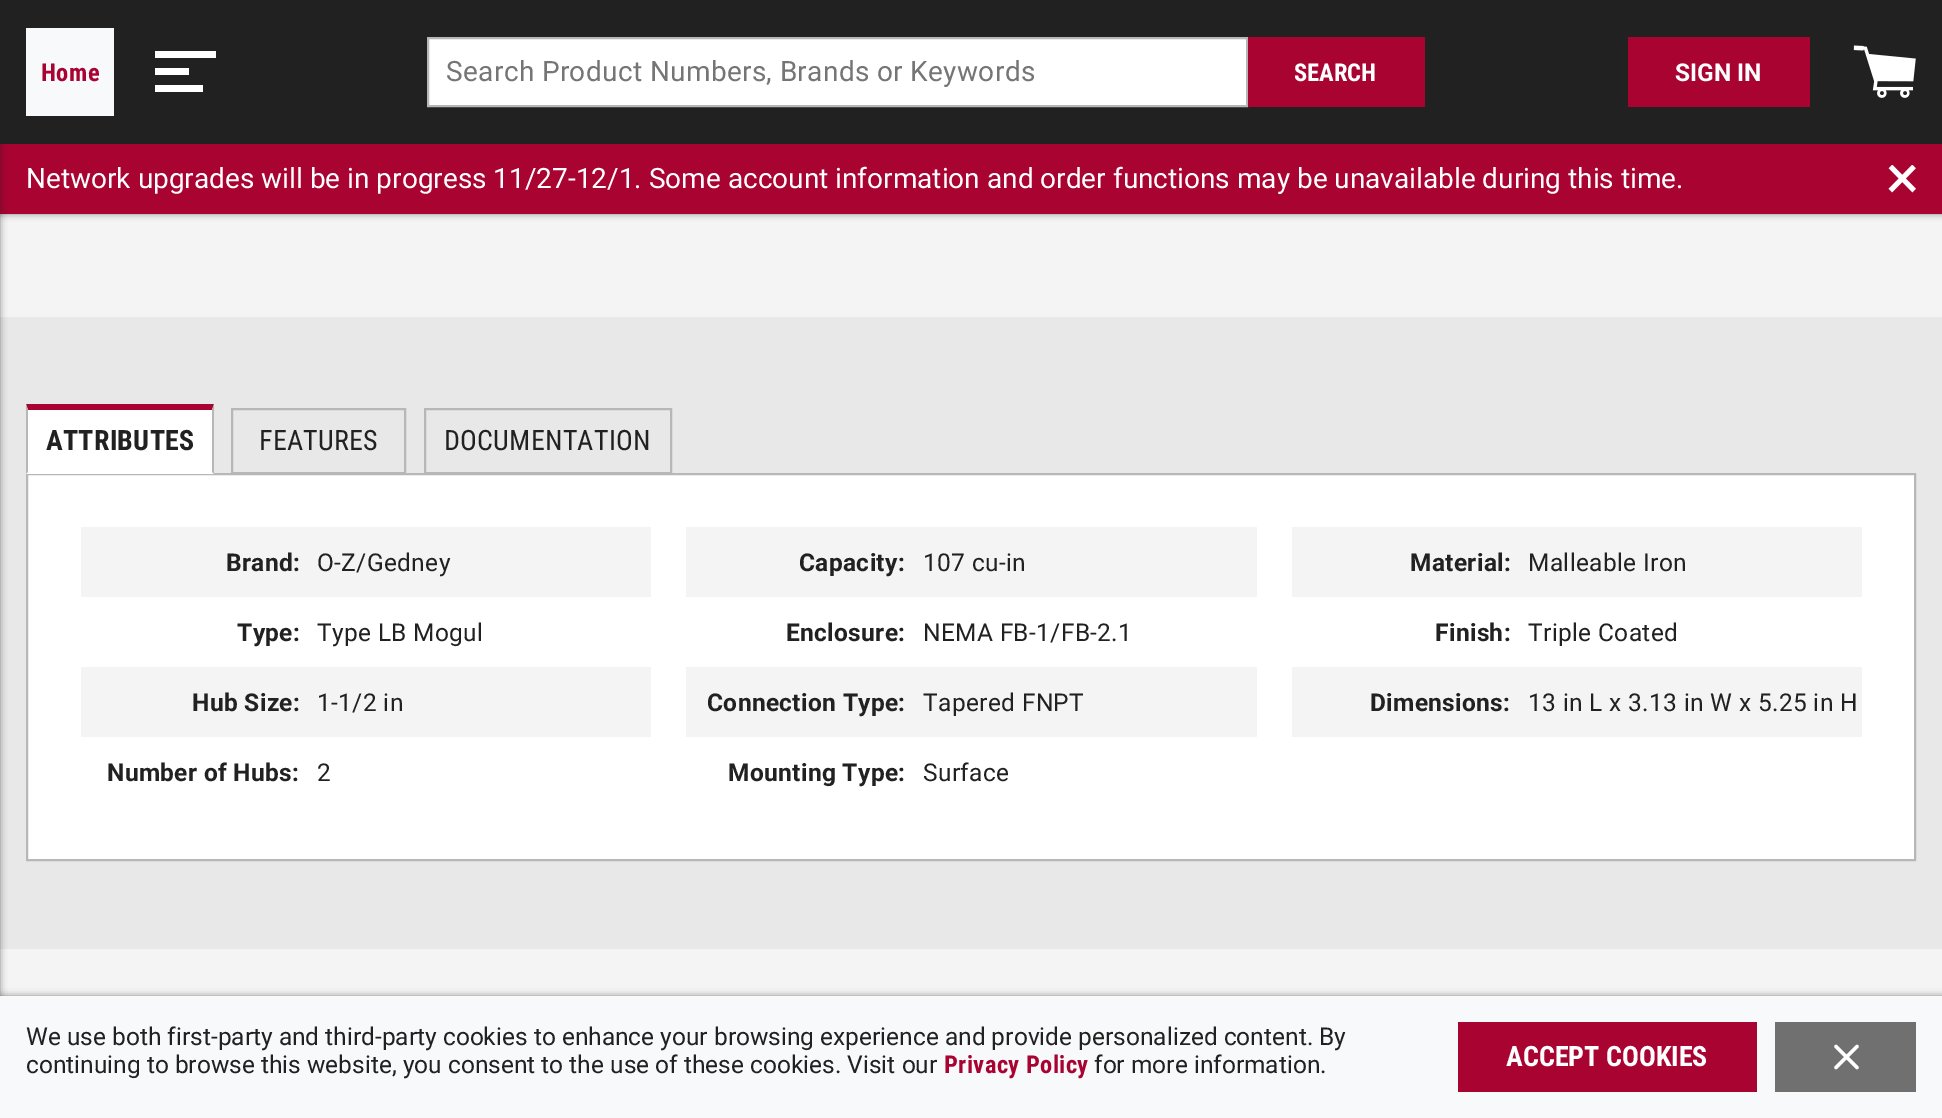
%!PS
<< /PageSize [1942 1118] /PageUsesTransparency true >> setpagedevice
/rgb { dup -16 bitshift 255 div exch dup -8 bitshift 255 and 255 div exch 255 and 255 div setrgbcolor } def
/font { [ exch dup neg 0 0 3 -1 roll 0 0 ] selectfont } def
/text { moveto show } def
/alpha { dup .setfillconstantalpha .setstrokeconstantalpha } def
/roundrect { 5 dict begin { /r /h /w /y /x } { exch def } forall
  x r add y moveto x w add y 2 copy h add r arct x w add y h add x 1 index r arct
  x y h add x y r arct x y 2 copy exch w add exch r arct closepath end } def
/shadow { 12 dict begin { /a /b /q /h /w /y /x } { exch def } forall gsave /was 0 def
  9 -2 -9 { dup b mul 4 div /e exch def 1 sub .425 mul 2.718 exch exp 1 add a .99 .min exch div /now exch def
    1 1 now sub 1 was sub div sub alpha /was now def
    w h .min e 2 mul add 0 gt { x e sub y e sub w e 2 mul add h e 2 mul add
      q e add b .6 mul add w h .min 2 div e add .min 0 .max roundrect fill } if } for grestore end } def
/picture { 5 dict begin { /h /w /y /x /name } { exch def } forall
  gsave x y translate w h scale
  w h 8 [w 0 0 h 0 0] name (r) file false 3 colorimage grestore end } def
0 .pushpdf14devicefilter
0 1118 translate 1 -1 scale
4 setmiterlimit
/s1 { /RobotoCondensed-Bold 24.5 font 16#FFFFFF rgb } def
/s2 { /Roboto-Bold 24.5 font 16#FFFFFF rgb } def
/s3 { /Roboto-Regular 28 font 16#FFFFFF rgb } def
/s4 { /Roboto-Regular 24.5 font 16#212121 rgb } def
/s5 { /RobotoCondensed-Bold 28 font 16#FFFFFF rgb } def
16#F4F4F4 rgb
0 0 1942 1118 rectfill
16#212121 rgb
0 0 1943 214 0 3.5 0.5 shadow
0 0 1942 144 rectfill
16#A80331 rgb
0 144 1942 70 rectfill
16#E8E8E8 rgb
0 317 1942 632 rectfill
16#212121 rgb
-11 0 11 1118 0 3.5 0.5 shadow
16#F8F9FA rgb
26 28 88 88 rectfill
/RobotoCondensed-Bold 24.5 font
16#A80331 rgb
41 81 moveto 0.4 0 (Home) ashow
16#FFFFFF rgb
203 85 moveto 203 92 lineto 155 92 lineto 155 85 lineto closepath 189 68 moveto 189 75 lineto 155 75 lineto 155 68 lineto closepath 216 51 moveto 216 58 lineto 155 58 lineto 155 51 lineto closepath eofill
428 38 moveto 1247 38 lineto 1247 106 lineto 428 106 lineto closepath gsave fill grestore
16#B7B7B7 rgb
2 setlinewidth
stroke
/Roboto-Regular 28 font
16#757575 rgb
446 81 moveto 0.35 0 (Search Product Numbers, Brands or Keywords) ashow
16#A80331 rgb
1248 37 177 70 rectfill
s1
(SEARCH) 1294 81 text
16#A80331 rgb
1628 37 182 70 rectfill
s2
(SIGN IN) 1675 81 text
(pic1.raw) 1853 45 63 53 picture
s3
(Network upgrades will be in progress 11/27-12/1. Some account information and order functions may be unavailable during this time.) 26 188 text
(pic2.raw) 1888 165 28 28 picture
27 474 moveto 1915 474 lineto 1915 860 lineto 27 860 lineto closepath gsave fill grestore
16#B7B7B7 rgb
stroke
16#FFFFFF rgb
26 404 188 70 rectfill
16#A80331 rgb
26 404 moveto 214 404 lineto 212 410 lineto 28 410 lineto closepath fill
16#B7B7B7 rgb
214 404 moveto 214 474 lineto 212 472 lineto 212 410 lineto closepath fill
26 474 moveto 26 404 lineto 28 410 lineto 28 472 lineto closepath fill
/RobotoCondensed-Bold 28 font
16#212121 rgb
46 450 moveto 0.25 0 (ATTRIBUTES) ashow
16#B7B7B7 rgb
232 409 173 64 rectstroke
/RobotoCondensed-Regular 28 font
16#212121 rgb
259 450 moveto 0.25 0 (FEATURES) ashow
16#B7B7B7 rgb
425 409 246 64 rectstroke
16#212121 rgb
444 450 moveto 0.25 0 (DOCUMENTATION) ashow
16#F4F4F4 rgb
81 527 570 70 rectfill
/Roboto-Bold 24.5 font
16#212121 rgb
226 571 moveto 0.35 0 (Brand:) ashow
/Roboto-Regular 24.5 font
317 571 moveto 0.35 0 (O-Z/Gedney) ashow
16#F4F4F4 rgb
686 527 571 70 rectfill
/Roboto-Bold 24.5 font
16#212121 rgb
799 571 moveto 0.35 0 (Capacity:) ashow
/Roboto-Regular 24.5 font
923 571 moveto 0.35 0 (107 cu-in) ashow
16#F4F4F4 rgb
1292 527 570 70 rectfill
/Roboto-Bold 24.5 font
16#212121 rgb
1410 571 moveto 0.35 0 (Material:) ashow
/Roboto-Regular 24.5 font
1528 571 moveto 0.35 0 (Malleable Iron) ashow
/Roboto-Bold 24.5 font
237 641 moveto 0.35 0 (Type:) ashow
/Roboto-Regular 24.5 font
317 641 moveto 0.35 0 (Type LB Mogul) ashow
/Roboto-Bold 24.5 font
786 641 moveto 0.35 0 (Enclosure:) ashow
/Roboto-Regular 24.5 font
923 641 moveto 0.35 0 (NEMA FB-1/FB-2.1) ashow
/Roboto-Bold 24.5 font
1435 641 moveto 0.35 0 (Finish:) ashow
/Roboto-Regular 24.5 font
1528 641 moveto 0.35 0 (Triple Coated) ashow
16#F4F4F4 rgb
81 667 570 70 rectfill
/Roboto-Bold 24.5 font
16#212121 rgb
192 711 moveto 0.35 0 (Hub Size:) ashow
/Roboto-Regular 24.5 font
317 711 moveto 0.35 0 (1-1/2 in) ashow
16#F4F4F4 rgb
686 667 571 70 rectfill
/Roboto-Bold 24.5 font
16#212121 rgb
707 711 moveto 0.35 0 (Connection Type:) ashow
/Roboto-Regular 24.5 font
923 711 moveto 0.35 0 (Tapered FNPT) ashow
16#F4F4F4 rgb
1292 667 570 70 rectfill
/Roboto-Bold 24.5 font
16#212121 rgb
1370 711 moveto 0.35 0 (Dimensions:) ashow
/Roboto-Regular 24.5 font
1528 711 moveto 0.35 0 (13 in L x 3.13 in W x 5.25 in H) ashow
/Roboto-Bold 24.5 font
107 781 moveto 0.35 0 (Number of Hubs:) ashow
/Roboto-Regular 24.5 font
317 781 moveto 0.35 0 (2) ashow
/Roboto-Bold 24.5 font
728 781 moveto 0.35 0 (Mounting Type:) ashow
/Roboto-Regular 24.5 font
923 781 moveto 0.35 0 (Surface) ashow
0 996 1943 122 0 3.5 0.5 shadow
16#F8F9FA rgb
0 996 1942 122 rectfill
s4
(We use both first-party and third-party cookies to enhance your browsing experience and provide personalized content. By) 26 1045 text
(continuing to browse this website, you consent to the use of these cookies. Visit our) 26 1073 text
/RobotoCondensed-Bold 24.5 font
16#A80331 rgb
944 1073 moveto 0.4 0 (Privacy Policy) ashow
s4
(for more information.) 1094 1073 text
16#A80331 rgb
1458 1022 299 70 rectfill
s5
(ACCEPT COOKIES) 1506 1066 text
16#707070 rgb
1775 1022 141 70 rectfill
16#FFFFFF rgb
3.5 setlinewidth
1 setlinecap
1 setlinejoin
1857 1046.5 moveto 1836 1067.5 lineto 1836 1046.5 moveto 1857 1067.5 lineto stroke
.poppdf14devicefilter showpage
